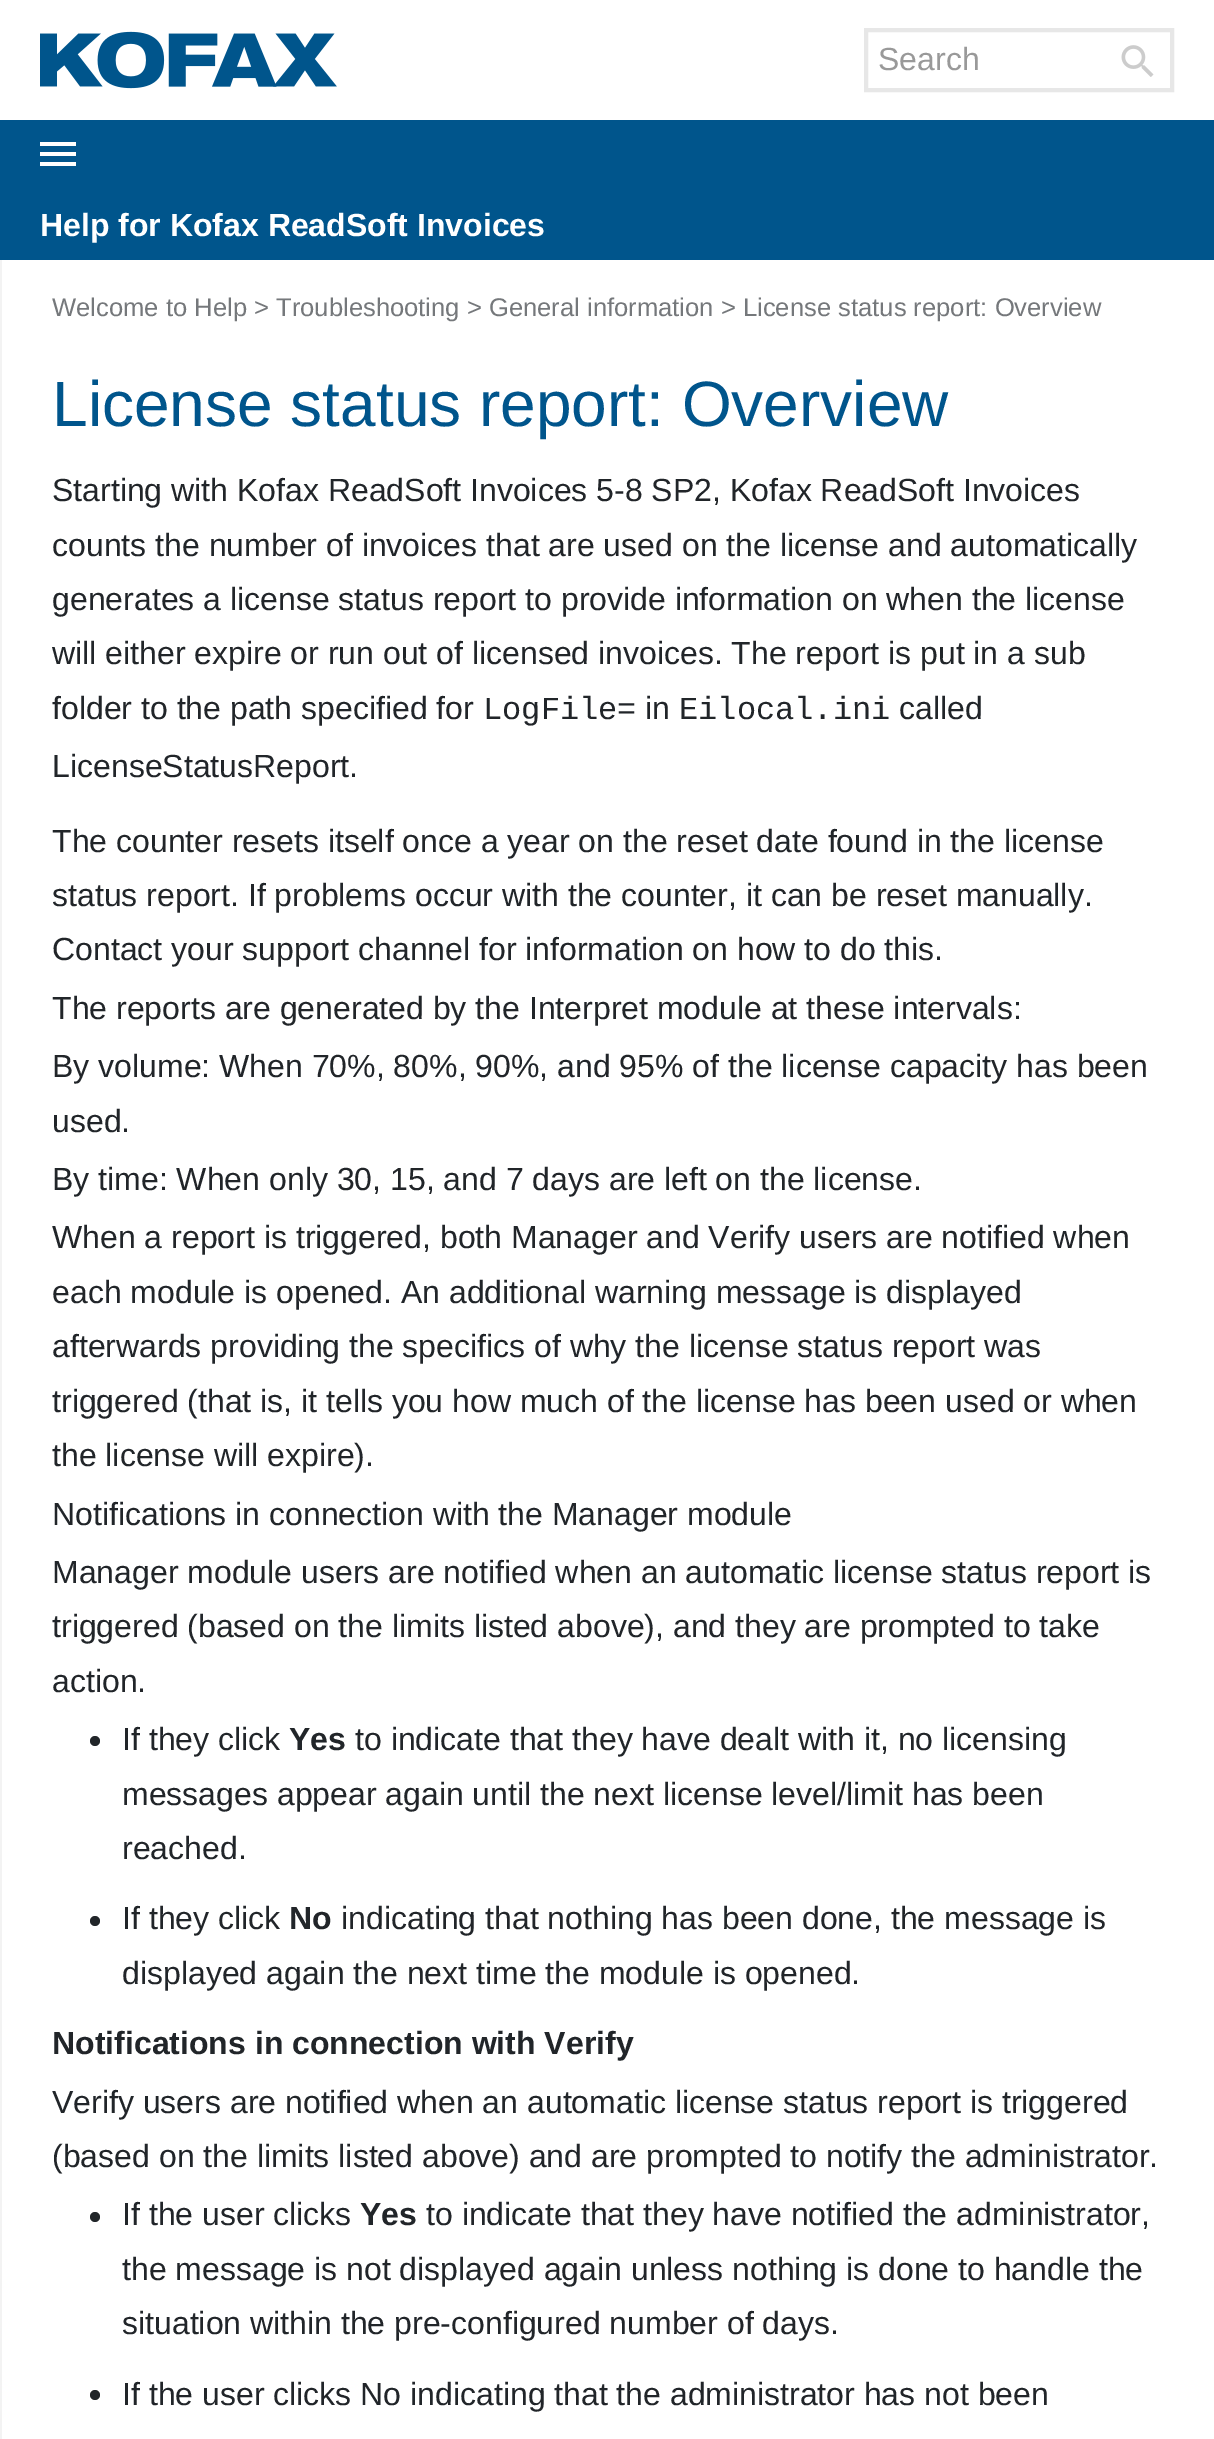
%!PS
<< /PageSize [1214 2439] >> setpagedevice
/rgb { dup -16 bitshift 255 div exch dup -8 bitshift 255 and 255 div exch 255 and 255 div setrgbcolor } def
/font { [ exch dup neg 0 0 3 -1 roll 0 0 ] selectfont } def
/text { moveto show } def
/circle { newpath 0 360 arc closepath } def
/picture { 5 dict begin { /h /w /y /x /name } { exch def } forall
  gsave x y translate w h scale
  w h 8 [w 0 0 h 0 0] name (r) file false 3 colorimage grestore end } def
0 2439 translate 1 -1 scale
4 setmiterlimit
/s1 { /LiberationSans-Regular 32 font 16#999999 rgb } def
/s2 { /LiberationSans-Bold 32 font 16#FFFFFF rgb } def
/s3 { /LiberationSans-Regular 25.6 font 16#75787B rgb } def
/s4 { /LiberationSans-Regular 64 font 16#00558C rgb } def
/s5 { /LiberationSans-Regular 32 font 16#212529 rgb } def
/s6 { /LiberationMono-Regular 32 font 16#212529 rgb } def
/s7 { /LiberationSans-Bold 32 font 16#212529 rgb } def
16#FFFFFF rgb
0 0 1214 2439 rectfill
(pic1.raw) 40 31 297 58 picture
16#E7E7E7 rgb
4 setlinewidth
866 30 306 60 rectstroke
s1
(Search) 878 70 text
(pic2.raw) 1121 45 33 32 picture
16#00558C rgb
0 120 1214 140 rectfill
16#FFFFFF rgb
40 152 36 4 rectfill
40 142 36 4 rectfill
40 162 36 4 rectfill
s2
(Help for Kofax ReadSoft Invoices) 40 236 text
16#F3F3F3 rgb
0 260 2 2179 rectfill
s3
(Welcome to Help > Troubleshooting > General information > License status report: Overview) 52 316 text
s4
(License status report: Overview) 52 426 text
s5
(Starting with Kofax ReadSoft Invoices 5-8 SP2, Kofax ReadSoft Invoices) 52 501 text
(counts the number of invoices that are used on the license and automatically) 52 556 text
(generates a license status report to provide information on when the license) 52 610 text
(will either expire or run out of licensed invoices. The report is put in a sub) 52 664 text
(folder to the path specified for) 52 719 text
s6
(LogFile=) 483 719 text
s5
(in) 645 719 text
s6
(Eilocal.ini) 679 719 text
s5
(called) 899 719 text
(LicenseStatusReport.) 52 777 text
(The counter resets itself once a year on the reset date found in the license) 52 852 text
(status report. If problems occur with the counter, it can be reset manually.) 52 906 text
(Contact your support channel for information on how to do this.) 52 960 text
(The reports are generated by the Interpret module at these intervals:) 52 1019 text
(By volume: When 70%, 80%, 90%, and 95% of the license capacity has been) 52 1077 text
(used.) 52 1132 text
(By time: When only 30, 15, and 7 days are left on the license.) 52 1190 text
(When a report is triggered, both Manager and Verify users are notified when) 52 1248 text
(each module is opened. An additional warning message is displayed) 52 1303 text
(afterwards providing the specifics of why the license status report was) 52 1357 text
(triggered \(that is, it tells you how much of the license has been used or when) 52 1412 text
(the license will expire\).) 52 1466 text
(Notifications in connection with the Manager module) 52 1525 text
(Manager module users are notified when an automatic license status report is) 52 1583 text
(triggered \(based on the limits listed above\), and they are prompted to take) 52 1637 text
(action.) 52 1692 text
95 1741 5 circle fill
(If they click) 122 1750 text
s7
(Yes) 289 1750 text
s5
(to indicate that they have dealt with it, no licensing) 355 1750 text
(messages appear again until the next license level/limit has been) 122 1805 text
(reached.) 122 1859 text
95 1921 5 circle fill
(If they click) 122 1929 text
s7
(No) 289 1929 text
s5
(indicating that nothing has been done, the message is) 341 1929 text
(displayed again the next time the module is opened.) 122 1984 text
s7
(Notifications in connection with Verify) 52 2054 text
s5
(Verify users are notified when an automatic license status report is triggered) 52 2113 text
(\(based on the limits listed above\) and are prompted to notify the administrator.) 52 2167 text
95 2217 5 circle fill
(If the user clicks) 122 2225 text
s7
(Yes) 360 2225 text
s5
(to indicate that they have notified the administrator,) 426 2225 text
(the message is not displayed again unless nothing is done to handle the) 122 2280 text
(situation within the pre-configured number of days.) 122 2334 text
95 2395 5 circle fill
(If the user clicks No indicating that the administrator has not been) 122 2405 text
showpage
